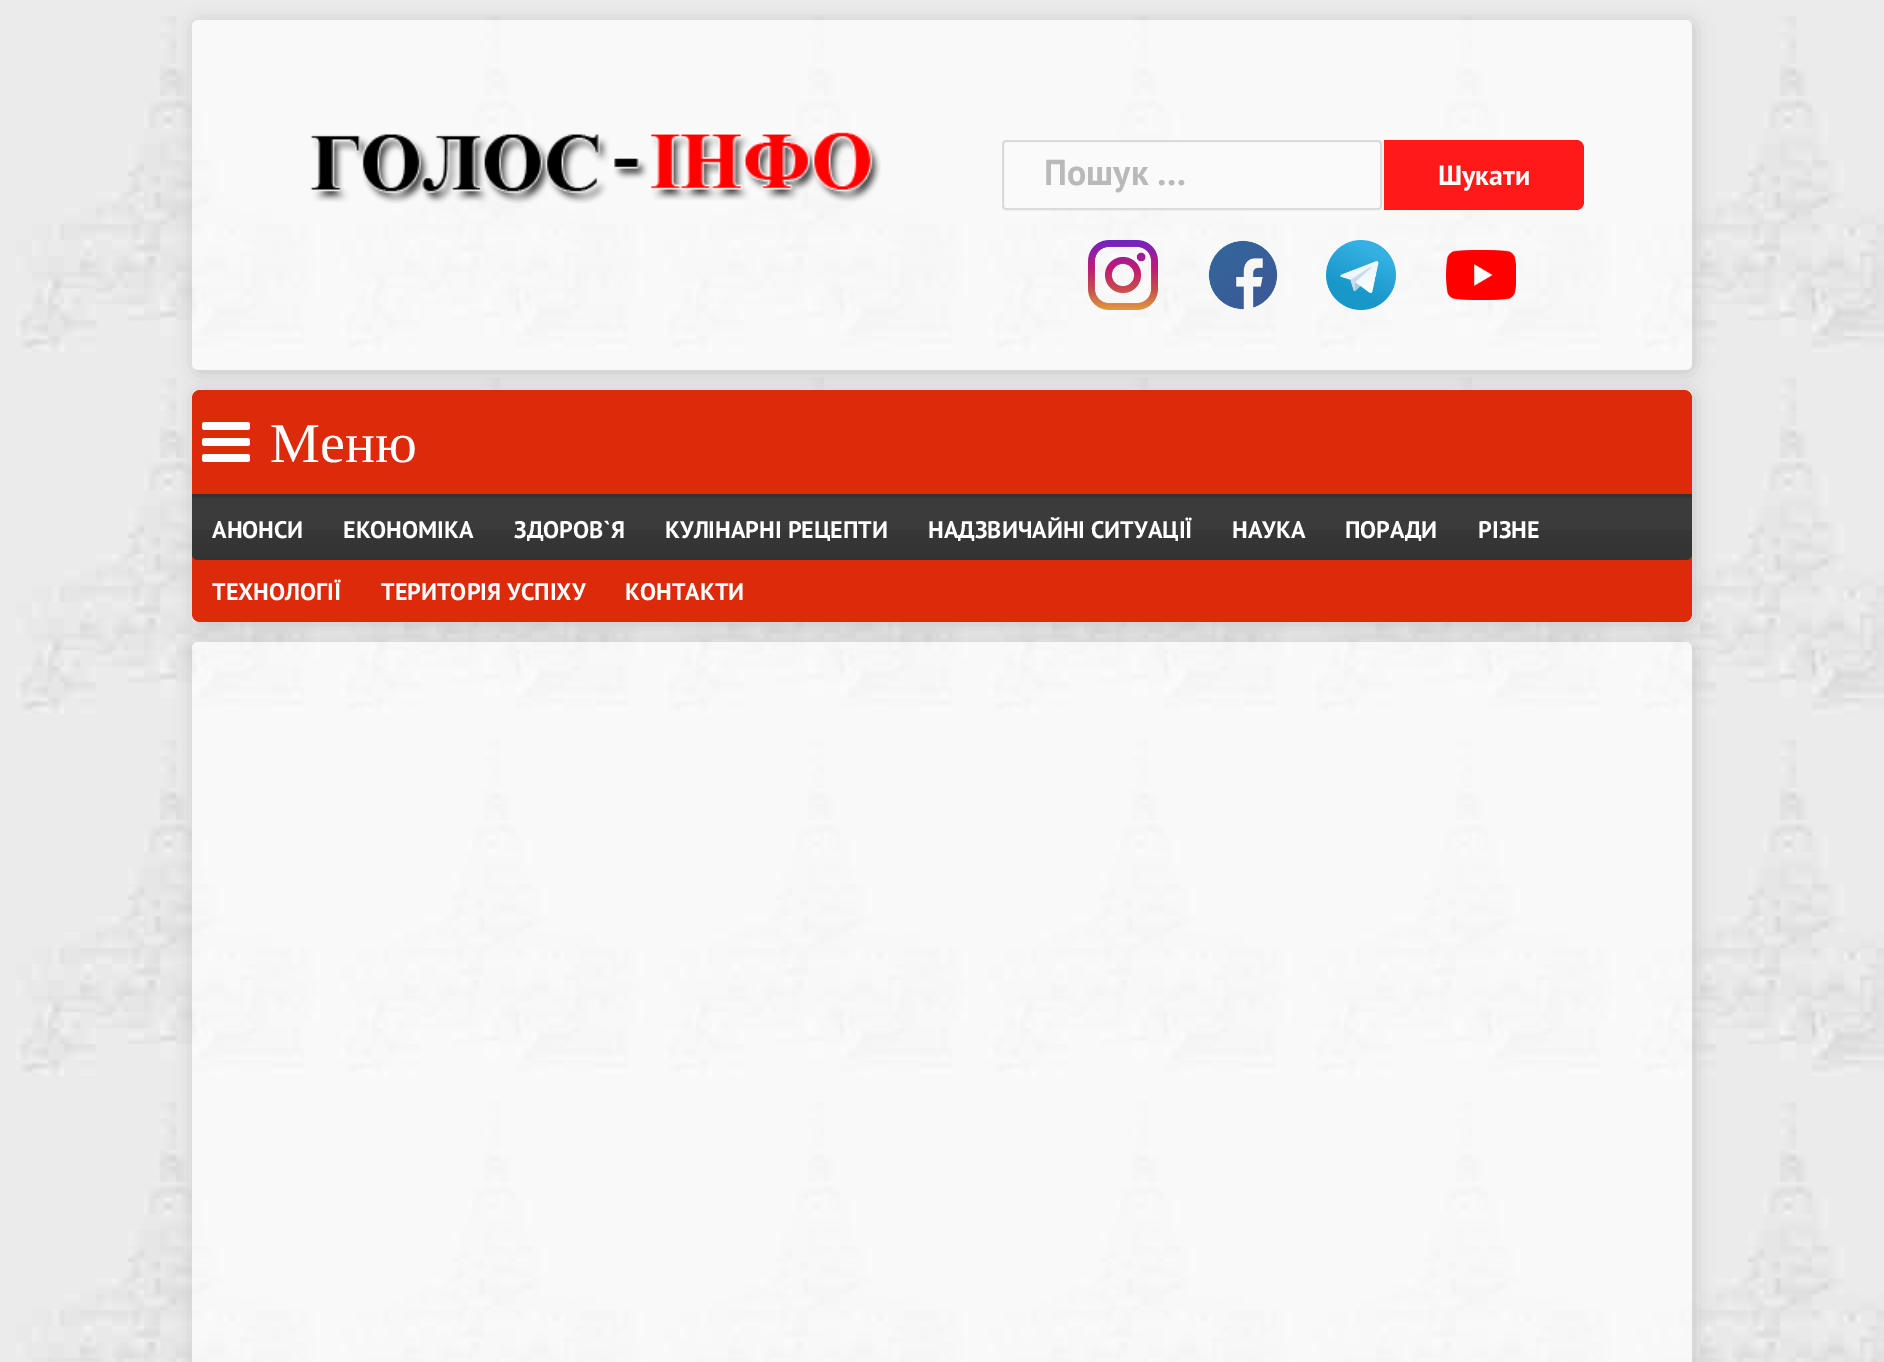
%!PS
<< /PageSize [1884 1362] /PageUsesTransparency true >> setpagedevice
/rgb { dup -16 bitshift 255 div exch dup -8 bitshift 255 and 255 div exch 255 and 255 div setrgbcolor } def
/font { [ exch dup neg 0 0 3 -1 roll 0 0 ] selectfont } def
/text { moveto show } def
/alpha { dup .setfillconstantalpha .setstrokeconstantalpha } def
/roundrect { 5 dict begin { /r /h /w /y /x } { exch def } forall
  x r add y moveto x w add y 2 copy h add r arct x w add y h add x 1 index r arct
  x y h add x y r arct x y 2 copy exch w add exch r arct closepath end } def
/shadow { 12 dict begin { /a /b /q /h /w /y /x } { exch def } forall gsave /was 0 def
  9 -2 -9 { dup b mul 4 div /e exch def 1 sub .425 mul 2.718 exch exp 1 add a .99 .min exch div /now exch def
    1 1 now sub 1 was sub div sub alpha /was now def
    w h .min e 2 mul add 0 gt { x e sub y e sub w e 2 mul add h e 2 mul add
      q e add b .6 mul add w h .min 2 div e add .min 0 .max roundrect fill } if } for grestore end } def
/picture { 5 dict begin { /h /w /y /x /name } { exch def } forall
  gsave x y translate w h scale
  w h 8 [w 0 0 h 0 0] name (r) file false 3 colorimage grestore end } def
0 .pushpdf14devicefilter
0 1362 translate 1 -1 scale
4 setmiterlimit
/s1 { /PTSans-Bold 36 font 16#B9B9B9 rgb } def
/s2 { /PTSans-Bold 28 font 16#FFFFFF rgb } def
/s3 { /LiberationSerif-Regular 56 font 16#FFFFFF rgb } def
/s4 { /PTSans-Bold 24 font 16#FFFFFF rgb } def
16#FFFFFF rgb
0 0 1884 1362 rectfill
(pic1.raw) 0 0 1884 1362 picture
gsave
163 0 moveto 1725 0 lineto 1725 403 lineto 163 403 lineto closepath 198 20 moveto 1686 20 lineto 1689.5 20 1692 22.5 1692 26 curveto 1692 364 lineto 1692 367.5 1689.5 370 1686 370 curveto 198 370 lineto 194.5 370 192 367.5 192 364 curveto 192 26 lineto 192 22.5 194.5 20 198 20 curveto closepath eoclip newpath
16#C5C5C5 rgb
194 22 1500 350 6 10 1 shadow
grestore
0.7 alpha
192 20 1500 350 6 roundrect fill
1 alpha
(pic2.raw) 310 132 571 72 picture
16#FAFAFA rgb
1003 141 378 68 3 roundrect gsave fill grestore
16#DBDBDB rgb
2 setlinewidth
stroke
s1
(Пошук …) 1044 185 text
16#FF1919 rgb
1384 140 moveto 1576 140 lineto 1580.5 140 1584 143.5 1584 148 curveto 1584 202 lineto 1584 206.5 1580.5 210 1576 210 curveto 1384 210 lineto closepath fill
s2
(Шукати) 1438 185 text
(pic3.raw) 1088 240 70 70 picture
(pic4.raw) 1208 240 70 70 picture
(pic5.raw) 1326 240 70 70 picture
(pic6.raw) 1446 250 70 50 picture
16#C5C5C5 rgb
194 392 1500 232 6 10 1 shadow
0.7 alpha
16#FFFFFF rgb
192 390 1500 232 6 roundrect fill
gsave
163 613 moveto 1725 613 lineto 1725 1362 lineto 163 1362 lineto closepath 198 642 moveto 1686 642 lineto 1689.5 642 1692 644.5 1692 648 curveto 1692 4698 lineto 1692 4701.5 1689.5 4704 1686 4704 curveto 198 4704 lineto 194.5 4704 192 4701.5 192 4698 curveto 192 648 lineto 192 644.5 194.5 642 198 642 curveto closepath eoclip newpath
1 alpha
16#C5C5C5 rgb
194 644 1500 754 6 10 1 shadow
grestore
1 alpha
16#DC2A0B rgb
192 390 1500 232 8 roundrect fill
(pic7.raw) 202 422 48 40 picture
s3
(Меню) 270 462 text
16#333333 rgb
192 494 1500 4 rectfill
(pic8.raw) 192 554 1500 6 picture
16#3B3B3B rgb
192 498 moveto 1692 498 lineto 1692 554 lineto 1692 557.5 1689.5 560 1686 560 curveto 198 560 lineto 194.5 560 192 557.5 192 554 curveto closepath fill
(pic9.raw) 192 530 1500 30 picture
s4
(АНОНСИ) 212 538 text
(ЕКОНОМІКА) 343 538 text
(ЗДОРОВ`Я) 514 538 text
(КУЛІНАРНІ РЕЦЕПТИ) 665 538 text
(НАДЗВИЧАЙНІ СИТУАЦІЇ) 928 538 text
(НАУКА) 1232 538 text
(ПОРАДИ) 1345 538 text
(РІЗНЕ) 1478 538 text
(ТЕХНОЛОГІЇ) 212 600 text
(ТЕРИТОРІЯ УСПІХУ) 381 600 text
(КОНТАКТИ) 625 600 text
0.7 alpha
192 642 1500 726 6 roundrect fill
.poppdf14devicefilter showpage
